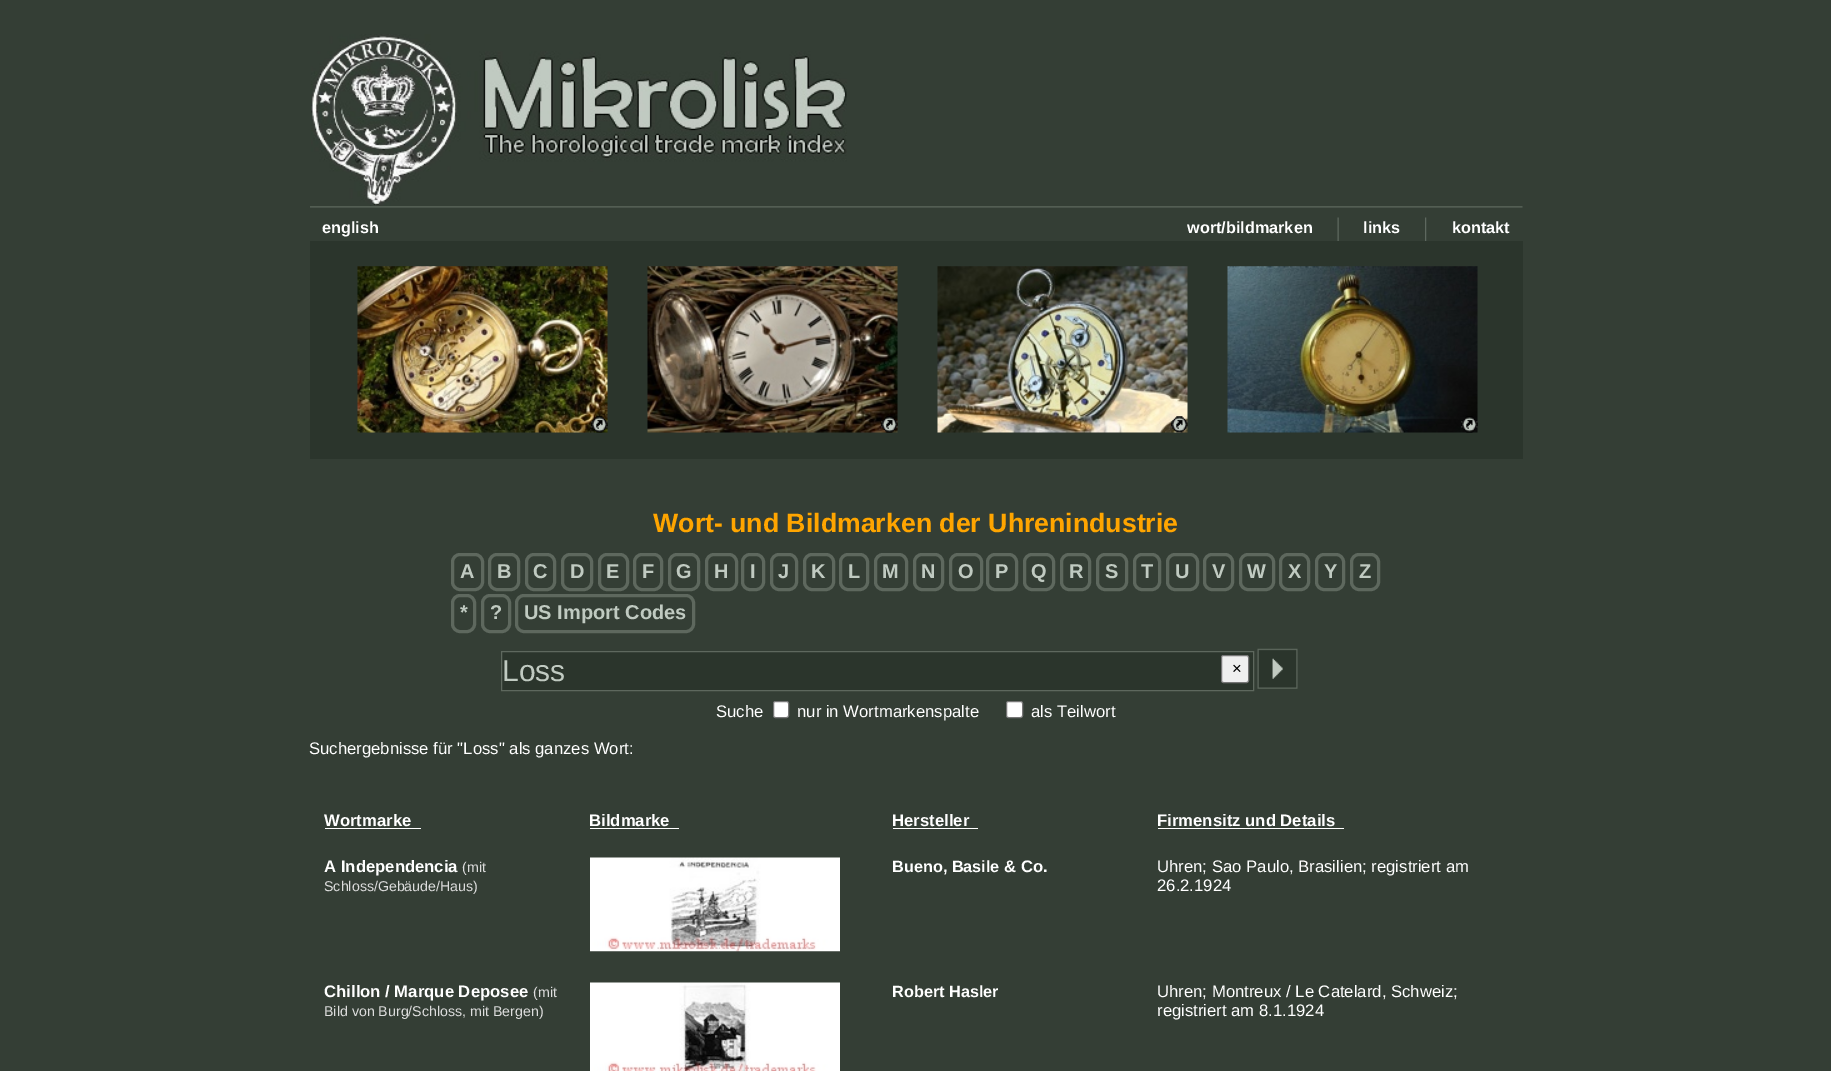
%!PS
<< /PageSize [1831 1071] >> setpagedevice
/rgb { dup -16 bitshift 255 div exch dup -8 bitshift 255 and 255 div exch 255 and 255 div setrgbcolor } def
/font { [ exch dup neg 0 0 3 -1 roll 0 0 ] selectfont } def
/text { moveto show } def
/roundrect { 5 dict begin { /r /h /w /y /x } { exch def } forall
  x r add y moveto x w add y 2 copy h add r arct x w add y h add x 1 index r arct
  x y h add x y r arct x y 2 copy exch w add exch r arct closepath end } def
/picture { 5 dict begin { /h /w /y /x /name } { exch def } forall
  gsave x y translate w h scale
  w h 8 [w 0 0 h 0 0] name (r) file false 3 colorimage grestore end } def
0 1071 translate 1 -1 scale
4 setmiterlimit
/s1 { /LiberationSans-Bold 16.25 font 16#FFFFFF rgb } def
/s2 { /LiberationSans-Bold 26.7 font 16#FFA500 rgb } def
/s3 { /LiberationSans-Bold 20 font 16#C0CAC1 rgb } def
/s4 { /LiberationSans-Regular 30 font 16#C0CAC1 rgb } def
/s5 { /LiberationSans-Regular 16.7 font 16#000000 rgb } def
/s6 { /LiberationSans-Regular 16.7 font 16#FFFFFF rgb } def
/s7 { /LiberationSans-Bold 16.7 font 16#FFFFFF rgb } def
/s8 { /LiberationSans-Regular 14.2 font 16#DDDDDD rgb } def
16#343E35 rgb
0 0 1831 1071 rectfill
(pic1.raw) 311 34 536 172 picture
(pic2.raw) 310 206 1213 2 picture
s1
(english) 322 233 text
(wort/bildmarken) 1187 233 text
(pic3.raw) 1337 217 2 24 picture
(links) 1363 233 text
(pic4.raw) 1425 217 2 24 picture
(kontakt) 1452 233 text
16#2B352C rgb
310 241 1213 218 rectfill
(pic5.raw) 357 266 251 167 picture
(pic6.raw) 647 266 251 167 picture
(pic7.raw) 937 266 251 167 picture
(pic8.raw) 1227 266 251 167 picture
(pic9.raw) 591 416 17 17 picture
(pic10.raw) 881 416 17 17 picture
(pic11.raw) 1171 416 17 17 picture
(pic12.raw) 1461 416 17 17 picture
s2
(Wort- und Bildmarken der Uhrenindustrie) 653 532 text
16#5E685E rgb
3 setlinewidth
452.5 554.5 30 35 7.5 roundrect stroke
s3
(A) 460 578 text
16#5E685E rgb
489.5 554.5 29 35 7.5 roundrect stroke
s3
(B) 497 578 text
16#5E685E rgb
526.5 554.5 28 35 7.5 roundrect stroke
s3
(C) 533 578 text
16#5E685E rgb
562.5 554.5 29 35 7.5 roundrect stroke
s3
(D) 570 578 text
16#5E685E rgb
599.5 554.5 28 35 7.5 roundrect stroke
s3
(E) 606 578 text
16#5E685E rgb
634.5 554.5 27 35 7.5 roundrect stroke
s3
(F) 642 578 text
16#5E685E rgb
669.5 554.5 29 35 7.5 roundrect stroke
s3
(G) 676 578 text
16#5E685E rgb
706.5 554.5 30 35 7.5 roundrect stroke
s3
(H) 714 578 text
16#5E685E rgb
742.5 554.5 21 35 7.5 roundrect stroke
s3
(I) 750 578 text
16#5E685E rgb
771.5 554.5 25 35 7.5 roundrect stroke
s3
(J) 778 578 text
16#5E685E rgb
804.5 554.5 29 35 7.5 roundrect stroke
s3
(K) 811 578 text
16#5E685E rgb
840.5 554.5 27 35 7.5 roundrect stroke
s3
(L) 848 578 text
16#5E685E rgb
875.5 554.5 31 35 7.5 roundrect stroke
s3
(M) 882 578 text
16#5E685E rgb
914.5 554.5 28 35 7.5 roundrect stroke
s3
(N) 921 578 text
16#5E685E rgb
950.5 554.5 31 35 7.5 roundrect stroke
s3
(O) 958 578 text
16#5E685E rgb
987.5 554.5 29 35 7.5 roundrect stroke
s3
(P) 995 578 text
16#5E685E rgb
1024.5 554.5 29 35 7.5 roundrect stroke
s3
(Q) 1031 578 text
16#5E685E rgb
1061.5 554.5 28 35 7.5 roundrect stroke
s3
(R) 1069 578 text
16#5E685E rgb
1097.5 554.5 29 35 7.5 roundrect stroke
s3
(S) 1105 578 text
16#5E685E rgb
1134.5 554.5 25 35 7.5 roundrect stroke
s3
(T) 1141 578 text
16#5E685E rgb
1167.5 554.5 30 35 7.5 roundrect stroke
s3
(U) 1175 578 text
16#5E685E rgb
1204.5 554.5 28 35 7.5 roundrect stroke
s3
(V) 1212 578 text
16#5E685E rgb
1240.5 554.5 33 35 7.5 roundrect stroke
s3
(W) 1247 578 text
16#5E685E rgb
1280.5 554.5 28 35 7.5 roundrect stroke
s3
(X) 1288 578 text
16#5E685E rgb
1316.5 554.5 27 35 7.5 roundrect stroke
s3
(Y) 1324 578 text
16#5E685E rgb
1351.5 554.5 27 35 7.5 roundrect stroke
s3
(Z) 1359 578 text
16#5E685E rgb
452.5 595.5 22 36 7.5 roundrect stroke
s3
(*) 460 619 text
16#5E685E rgb
482.5 595.5 27 36 7.5 roundrect stroke
s3
(?) 490 619 text
16#5E685E rgb
516.5 595.5 177 36 7.5 roundrect stroke
s3
(US Import Codes) 524 619 text
16#2B352C rgb
501.5 651.5 moveto 1253.5 651.5 lineto 1253.5 690.5 lineto 501.5 690.5 lineto closepath gsave fill grestore
16#5E685E rgb
1 setlinewidth
stroke
s4
(Loss) 502 681 text
16#EFEFEF rgb
1221.5 655.5 27 27 2 roundrect gsave fill grestore
16#767676 rgb
stroke
s5
(×) 1232 674 text
(pic13.raw) 1257 648 41 41 picture
s6
(Suche) 716 717 text
773.5 701.5 15 16 2 roundrect gsave fill grestore
16#767676 rgb
stroke
s6
(nur in Wortmarkenspalte) 797 717 text
1006.5 701.5 16 16 2 roundrect gsave fill grestore
16#767676 rgb
stroke
s6
(als Teilwort) 1031 717 text
(Suchergebnisse für "Loss" als ganzes Wort:) 309 754 text
s7
(Wortmarke) 324 826 text
325 828 96 1 rectfill
(Bildmarke) 589 826 text
590 828 89 1 rectfill
(Hersteller) 892 826 text
893 828 85 1 rectfill
(Firmensitz und Details) 1157 826 text
1158 828 186 1 rectfill
(A Independencia) 324 872 text
s8
(\(mit) 462 872 text
(Schloss/Gebäude/Haus\)) 324 891 text
(pic14.raw) 590 857 250 95 picture
s1
(Bueno, Basile) 892 872 text
s7
(& Co.) 1004 872 text
s6
(Uhren; Sao Paulo, Brasilien; registriert am) 1157 872 text
(26.2.1924) 1157 891 text
s7
(Chillon / Marque Deposee) 324 997 text
s8
(\(mit) 533 997 text
(Bild von Burg/Schloss, mit Bergen\)) 324 1016 text
(pic15.raw) 590 982 250 89 picture
s1
(Robert Hasler) 892 997 text
s6
(Uhren; Montreux / Le Catelard, Schweiz;) 1157 997 text
(registriert am 8.1.1924) 1157 1016 text
showpage
